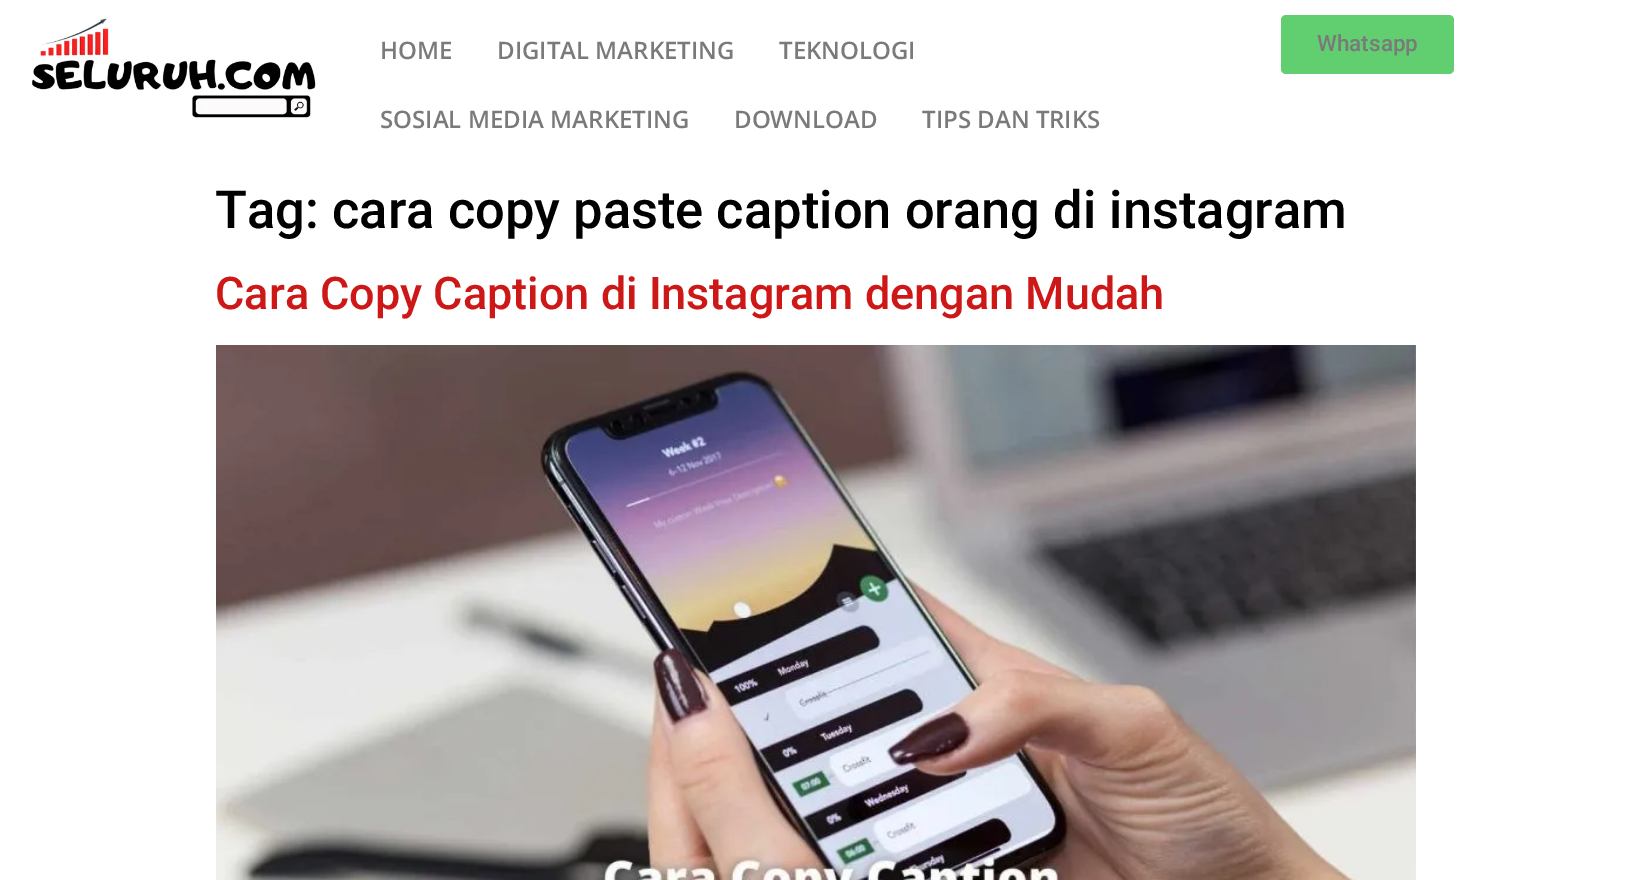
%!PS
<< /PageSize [1630 880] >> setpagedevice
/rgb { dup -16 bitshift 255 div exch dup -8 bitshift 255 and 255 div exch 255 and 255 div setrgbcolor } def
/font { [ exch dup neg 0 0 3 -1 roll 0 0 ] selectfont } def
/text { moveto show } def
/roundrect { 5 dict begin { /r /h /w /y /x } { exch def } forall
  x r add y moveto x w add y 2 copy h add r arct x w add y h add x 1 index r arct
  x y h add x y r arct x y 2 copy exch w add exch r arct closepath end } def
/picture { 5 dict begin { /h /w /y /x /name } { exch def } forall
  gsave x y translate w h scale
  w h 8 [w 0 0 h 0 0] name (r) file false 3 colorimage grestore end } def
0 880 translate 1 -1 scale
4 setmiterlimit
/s1 { /OpenSans-SemiBold 24 font 16#7A7A7A rgb } def
/s2 { /Roboto-Medium 22.5 font 16#7A7A7A rgb } def
/s3 { /Roboto-Medium 52.5 font 16#000000 rgb } def
/s4 { /Roboto-Medium 45 font 16#CE1818 rgb } def
16#FFFFFF rgb
0 0 1630 880 rectfill
(pic1.raw) 31 18 285 100 picture
s1
(HOME) 380 59 text
(DIGITAL MARKETING) 497 59 text
(TEKNOLOGI) 779 59 text
(SOSIAL MEDIA MARKETING) 380 128 text
(DOWNLOAD) 734 128 text
(TIPS DAN TRIKS) 922 128 text
16#61CE70 rgb
1281 15 173 59 5 roundrect fill
s2
(Whatsapp) 1317 51 text
s3
(Tag: cara copy paste caption orang di instagram) 215 228 text
s4
(Cara Copy Caption di Instagram dengan Mudah) 215 309 text
(pic2.raw) 216 345 1200 535 picture
showpage
